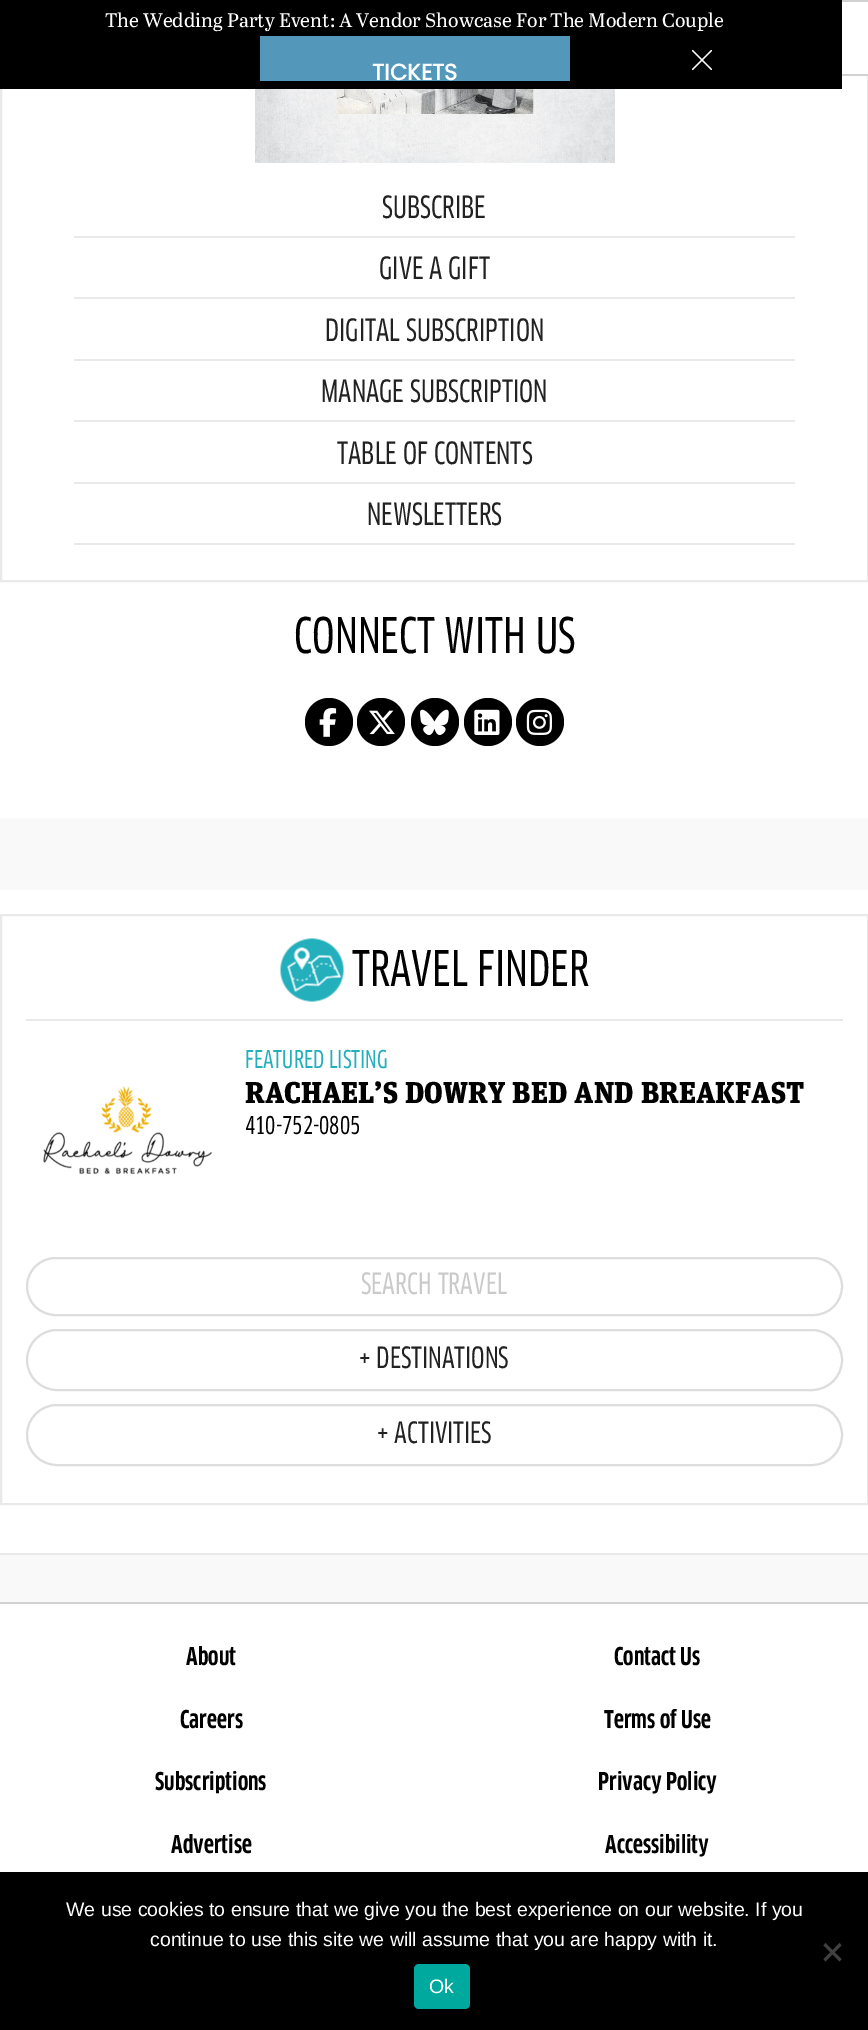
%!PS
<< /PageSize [868 2030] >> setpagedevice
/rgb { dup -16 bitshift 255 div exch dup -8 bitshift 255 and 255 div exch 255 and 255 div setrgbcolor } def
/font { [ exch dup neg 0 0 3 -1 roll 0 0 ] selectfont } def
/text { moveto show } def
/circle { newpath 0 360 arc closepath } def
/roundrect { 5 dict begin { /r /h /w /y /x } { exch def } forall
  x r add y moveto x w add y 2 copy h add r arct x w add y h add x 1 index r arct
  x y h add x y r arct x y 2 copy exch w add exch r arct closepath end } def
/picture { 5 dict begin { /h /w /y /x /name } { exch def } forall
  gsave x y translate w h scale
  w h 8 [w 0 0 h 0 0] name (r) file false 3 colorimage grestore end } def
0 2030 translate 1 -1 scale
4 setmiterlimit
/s1 { /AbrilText-Regular 19.5 font 16#FFFFFF rgb } def
/s2 { /Poppins-Bold 22.5 font 16#FFFFFF rgb } def
/s3 { /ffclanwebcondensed-Medium 30 font 16#222222 rgb } def
/s4 { /ffclanwebcondensed-Medium 48 font 16#000000 rgb } def
/s5 { /ffclanwebcondensed-Medium 24 font 16#23AFBC rgb } def
/s6 { /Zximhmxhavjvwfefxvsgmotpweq-Black 30 font 16#000000 rgb } def
/s7 { /ffclanwebcondensed-Medium 24 font 16#000000 rgb } def
/s8 { /ffclanwebcondensed-Medium 28.75 font 16#CACACA rgb } def
/s9 { /ffclanwebcondensed-Medium 28.75 font 16#222222 rgb } def
/s10 { /ffclanwebcondensed-Bold 24 font 16#000000 rgb } def
/s11 { /LiberationSans-Regular 19.5 font 16#FFFFFF rgb } def
16#FFFFFF rgb
0 0 868 2030 rectfill
16#E9E9E9 rgb
2 setlinewidth
1 -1 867 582 rectstroke
16#000000 rgb
0 0 842 89 rectfill
s1
(The Wedding Party Event: A Vendor Showcase For The Modern Couple) 105 27 text
1.1 setlinewidth
1 setlinecap
692.5 50.5 moveto 711.5 69.5 lineto 711.5 50.5 moveto 692.5 69.5 lineto stroke
16#5398BB rgb
260 36 310 45 rectfill
s2
(TICKETS) 372 80 text
867 2 1 72 rectfill
16#D2D2D2 rgb
842 0 26 2 rectfill
842 74 26 2 rectfill
(pic1.raw) 255 89 360 74 picture
16#E9E9E9 rgb
74 236 721 2 rectfill
s3
(SUBSCRIBE) 382 218 text
16#E9E9E9 rgb
74 297 721 2 rectfill
s3
(GIVE A GIFT) 379 279 text
16#E9E9E9 rgb
74 359 721 2 rectfill
s3
(DIGITAL SUBSCRIPTION) 325 341 text
16#E9E9E9 rgb
74 420 721 2 rectfill
s3
(MANAGE SUBSCRIPTION) 321 402 text
16#E9E9E9 rgb
74 482 721 2 rectfill
s3
(TABLE OF CONTENTS) 337 464 text
16#E9E9E9 rgb
74 543 721 2 rectfill
s3
(NEWSLETTERS) 367 525 text
s4
(CONNECT WITH US) 294 653 text
329 722 24 circle fill
(pic2.raw) 319 708 18 29 picture
381 722 24 circle fill
(pic3.raw) 369 710 26 25 picture
435 722 24 circle fill
(pic4.raw) 420 709 29 27 picture
488 722 24 circle fill
(pic5.raw) 474 709 26 26 picture
540 722 24 circle fill
(pic6.raw) 526 709 26 26 picture
16#F9F9F9 rgb
0 818 868 72 rectfill
16#E9E9E9 rgb
2 setlinewidth
0 setlinecap
1 915 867 589 rectstroke
(pic7.raw) 280 938 64 64 picture
s4
(TRAVEL FINDER) 352 986 text
16#E9E9E9 rgb
26 1019 817 2 rectfill
(pic8.raw) 43 1086 169 89 picture
s5
(FEATURED LISTING) 245 1068 text
s6
(RACHAEL’S DOWRY BED AND BREAKFAST) 245 1103 text
s7
(410-752-0805) 245 1134 text
16#DDDDDD rgb
27 1258 815 57 28.5 roundrect stroke
s8
(SEARCH TRAVEL) 361 1294 text
16#DDDDDD rgb
27 1330 815 60 30 roundrect stroke
s9
(+ DESTINATIONS) 359 1368 text
16#DDDDDD rgb
27 1405 815 60 30 roundrect stroke
s9
(+ ACTIVITIES) 377 1443 text
16#F9F9F9 rgb
0 1555 868 47 rectfill
16#E9E9E9 rgb
0 1553 868 2 rectfill
16#D2D2D2 rgb
0 1602 868 2 rectfill
s10
(About) 186 1665 text
(Contact Us) 614 1665 text
(Careers) 180 1728 text
(Terms of Use) 604 1728 text
(Subscriptions) 155 1790 text
(Privacy Policy) 598 1790 text
(Advertise) 171 1853 text
(Accessibility) 605 1853 text
0 1872 868 158 rectfill
s11
(We use cookies to ensure that we give you the best experience on our website. If you) 66 1916 text
(continue to use this site we will assume that you are happy with it.) 150 1946 text
16#404040 rgb
839.5 1943 moveto 841.5 1945.5 lineto 825.5 1961.5 lineto 823.5 1959 lineto closepath fill
823.5 1945.5 moveto 825.5 1943 lineto 841.5 1959 lineto 839.5 1961.5 lineto closepath fill
16#00A99D rgb
414 1964 56 45 5 roundrect fill
s11
(Ok) 429 1993 text
showpage
